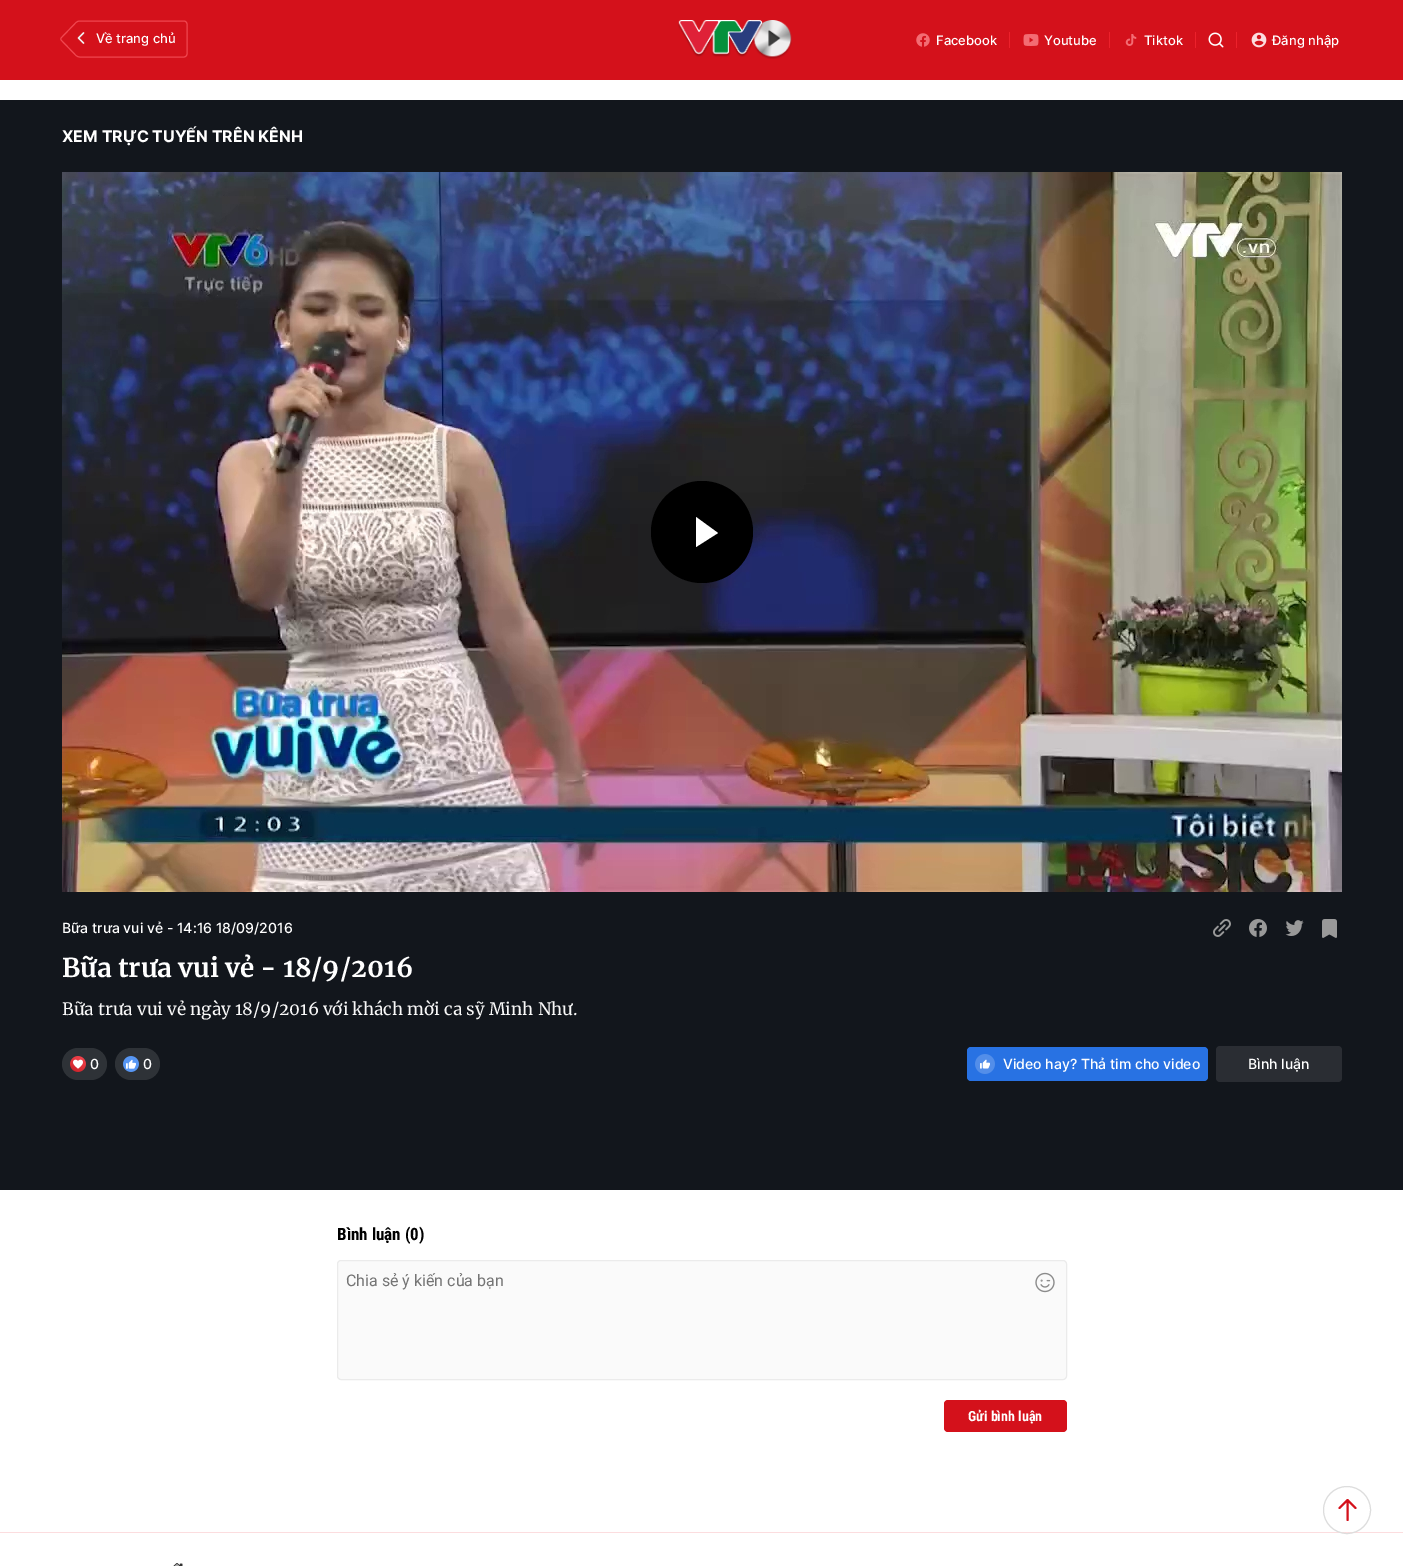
%!PS
<< /PageSize [1403 1566] >> setpagedevice
/rgb { dup -16 bitshift 255 div exch dup -8 bitshift 255 and 255 div exch 255 and 255 div setrgbcolor } def
/font { [ exch dup neg 0 0 3 -1 roll 0 0 ] selectfont } def
/text { moveto show } def
/circle { newpath 0 360 arc closepath } def
/roundrect { 5 dict begin { /r /h /w /y /x } { exch def } forall
  x r add y moveto x w add y 2 copy h add r arct x w add y h add x 1 index r arct
  x y h add x y r arct x y 2 copy exch w add exch r arct closepath end } def
/picture { 5 dict begin { /h /w /y /x /name } { exch def } forall
  gsave x y translate w h scale
  w h 8 [w 0 0 h 0 0] name (r) file false 3 colorimage grestore end } def
0 1566 translate 1 -1 scale
4 setmiterlimit
/s1 { /Inter-Medium 13 font 16#FFFFFF rgb } def
/s2 { /Inter-Bold 16 font 16#FFFFFF rgb } def
/s3 { /Inter-Medium 14 font 16#FFFFFF rgb } def
/s4 { /Merriweather-Bold 26 font 16#FFFFFF rgb } def
/s5 { /Merriweather-Regular 17 font 16#F8F8F8 rgb } def
/s6 { /RobotoCondensed-Bold 17 font 16#000000 rgb } def
/s7 { /Roboto-Regular 16 font 16#757575 rgb } def
/s8 { /RobotoCondensed-Bold 14 font 16#FFFFFF rgb } def
16#FFFFFF rgb
0 0 1403 1566 rectfill
16#D4111B rgb
0 0 1403 80 rectfill
16#F0464F rgb
61.5 37.5 moveto 76 22.5 lineto 77 21.5 78.5 21 80 21 curveto 184 21 lineto 185.5 21 187 22.5 187 24 curveto 187 54 lineto 187 55.5 185.5 57 184 57 curveto 80 57 lineto 78.5 57 77 56.5 76 55.5 curveto 61.5 40.5 lineto 60.5 39.5 60.5 38.5 61.5 37.5 curveto closepath stroke
(pic1.raw) 77 32 8 12 picture
s1
(Về trang chủ) 96 43 text
(pic2.raw) 678 20 114 39 picture
(pic3.raw) 916 33 14 14 picture
(Facebook) 936 45 text
16#ED212B rgb
1009 32 1 16 rectfill
(pic4.raw) 1023 34 16 12 picture
s1
(Youtube) 1044 45 text
16#ED212B rgb
1109 32 1 16 rectfill
(pic5.raw) 1125 34 12 12 picture
s1
(Tiktok) 1144 45 text
16#ED212B rgb
1195 32 1 16 rectfill
(pic6.raw) 1208 32 16 16 picture
1236 32 1 16 rectfill
(pic7.raw) 1251 32 16 16 picture
s1
(Đăng nhập) 1272 45 text
16#12161C rgb
0 100 1403 1090 rectfill
s2
(XEM TRỰC TUYẾN TRÊN KÊNH) 62 142 text
(pic8.raw) 62 172 1280 720 picture
16#000000 rgb
702 532 51 circle fill
16#FFFFFF rgb
696 547 moveto 696 517 lineto 718 533 lineto closepath fill
s3
(Bữa trưa vui vẻ - 14:16 18/09/2016) 62 933 text
(pic9.raw) 1213 919 18 18 picture
(pic10.raw) 1249 919 18 18 picture
(pic11.raw) 1285 920 19 16 picture
(pic12.raw) 1322 919 15 19 picture
s4
(Bữa trưa vui vẻ - 18/9/2016) 62 977 text
s5
(Bữa trưa vui vẻ ngày 18/9/2016 với khách mời ca sỹ Minh Như.) 62 1015 text
16#2E3237 rgb
62 1048 45 32 16 roundrect fill
(pic13.raw) 70 1056 16 16 picture
s3
(0) 90 1069 text
16#2E3237 rgb
115 1048 45 32 16 roundrect fill
(pic14.raw) 123 1056 16 16 picture
s3
(0) 143 1069 text
16#2872E3 rgb
967 1047 241 34 4 roundrect fill
(pic15.raw) 975 1054 20 20 picture
s3
(Video hay? Thả tim cho video) 1003 1069 text
16#2A2D33 rgb
1216 1046 126 36 4 roundrect fill
s3
(Bình luận) 1248 1069 text
s6
(Bình luận \(0\)) 337 1240 text
16#FAFAFA rgb
337.5 1260.5 729 119 3.5 roundrect gsave fill grestore
16#EBEBEB rgb
stroke
s7
(Chia sẻ ý kiến của bạn) 346 1286 text
(pic16.raw) 1035 1272 20 21 picture
16#D4111B rgb
944 1400 123 32 4 roundrect fill
s8
(Gửi bình luận) 968 1421 text
16#FCDDDF rgb
0 1532 1403 1 rectfill
16#DDDDDD rgb
1347 1510 23.5 circle stroke
16#D4111B rgb
2 setlinewidth
1 setlinecap
1 setlinejoin
1339.5 1508 moveto 1347.5 1500 lineto 1347.5 1500 moveto 1355.5 1508 lineto 1347.5 1500 moveto 1347.5 1520 lineto stroke
(pic17.raw) 173 1563 10 3 picture
showpage
